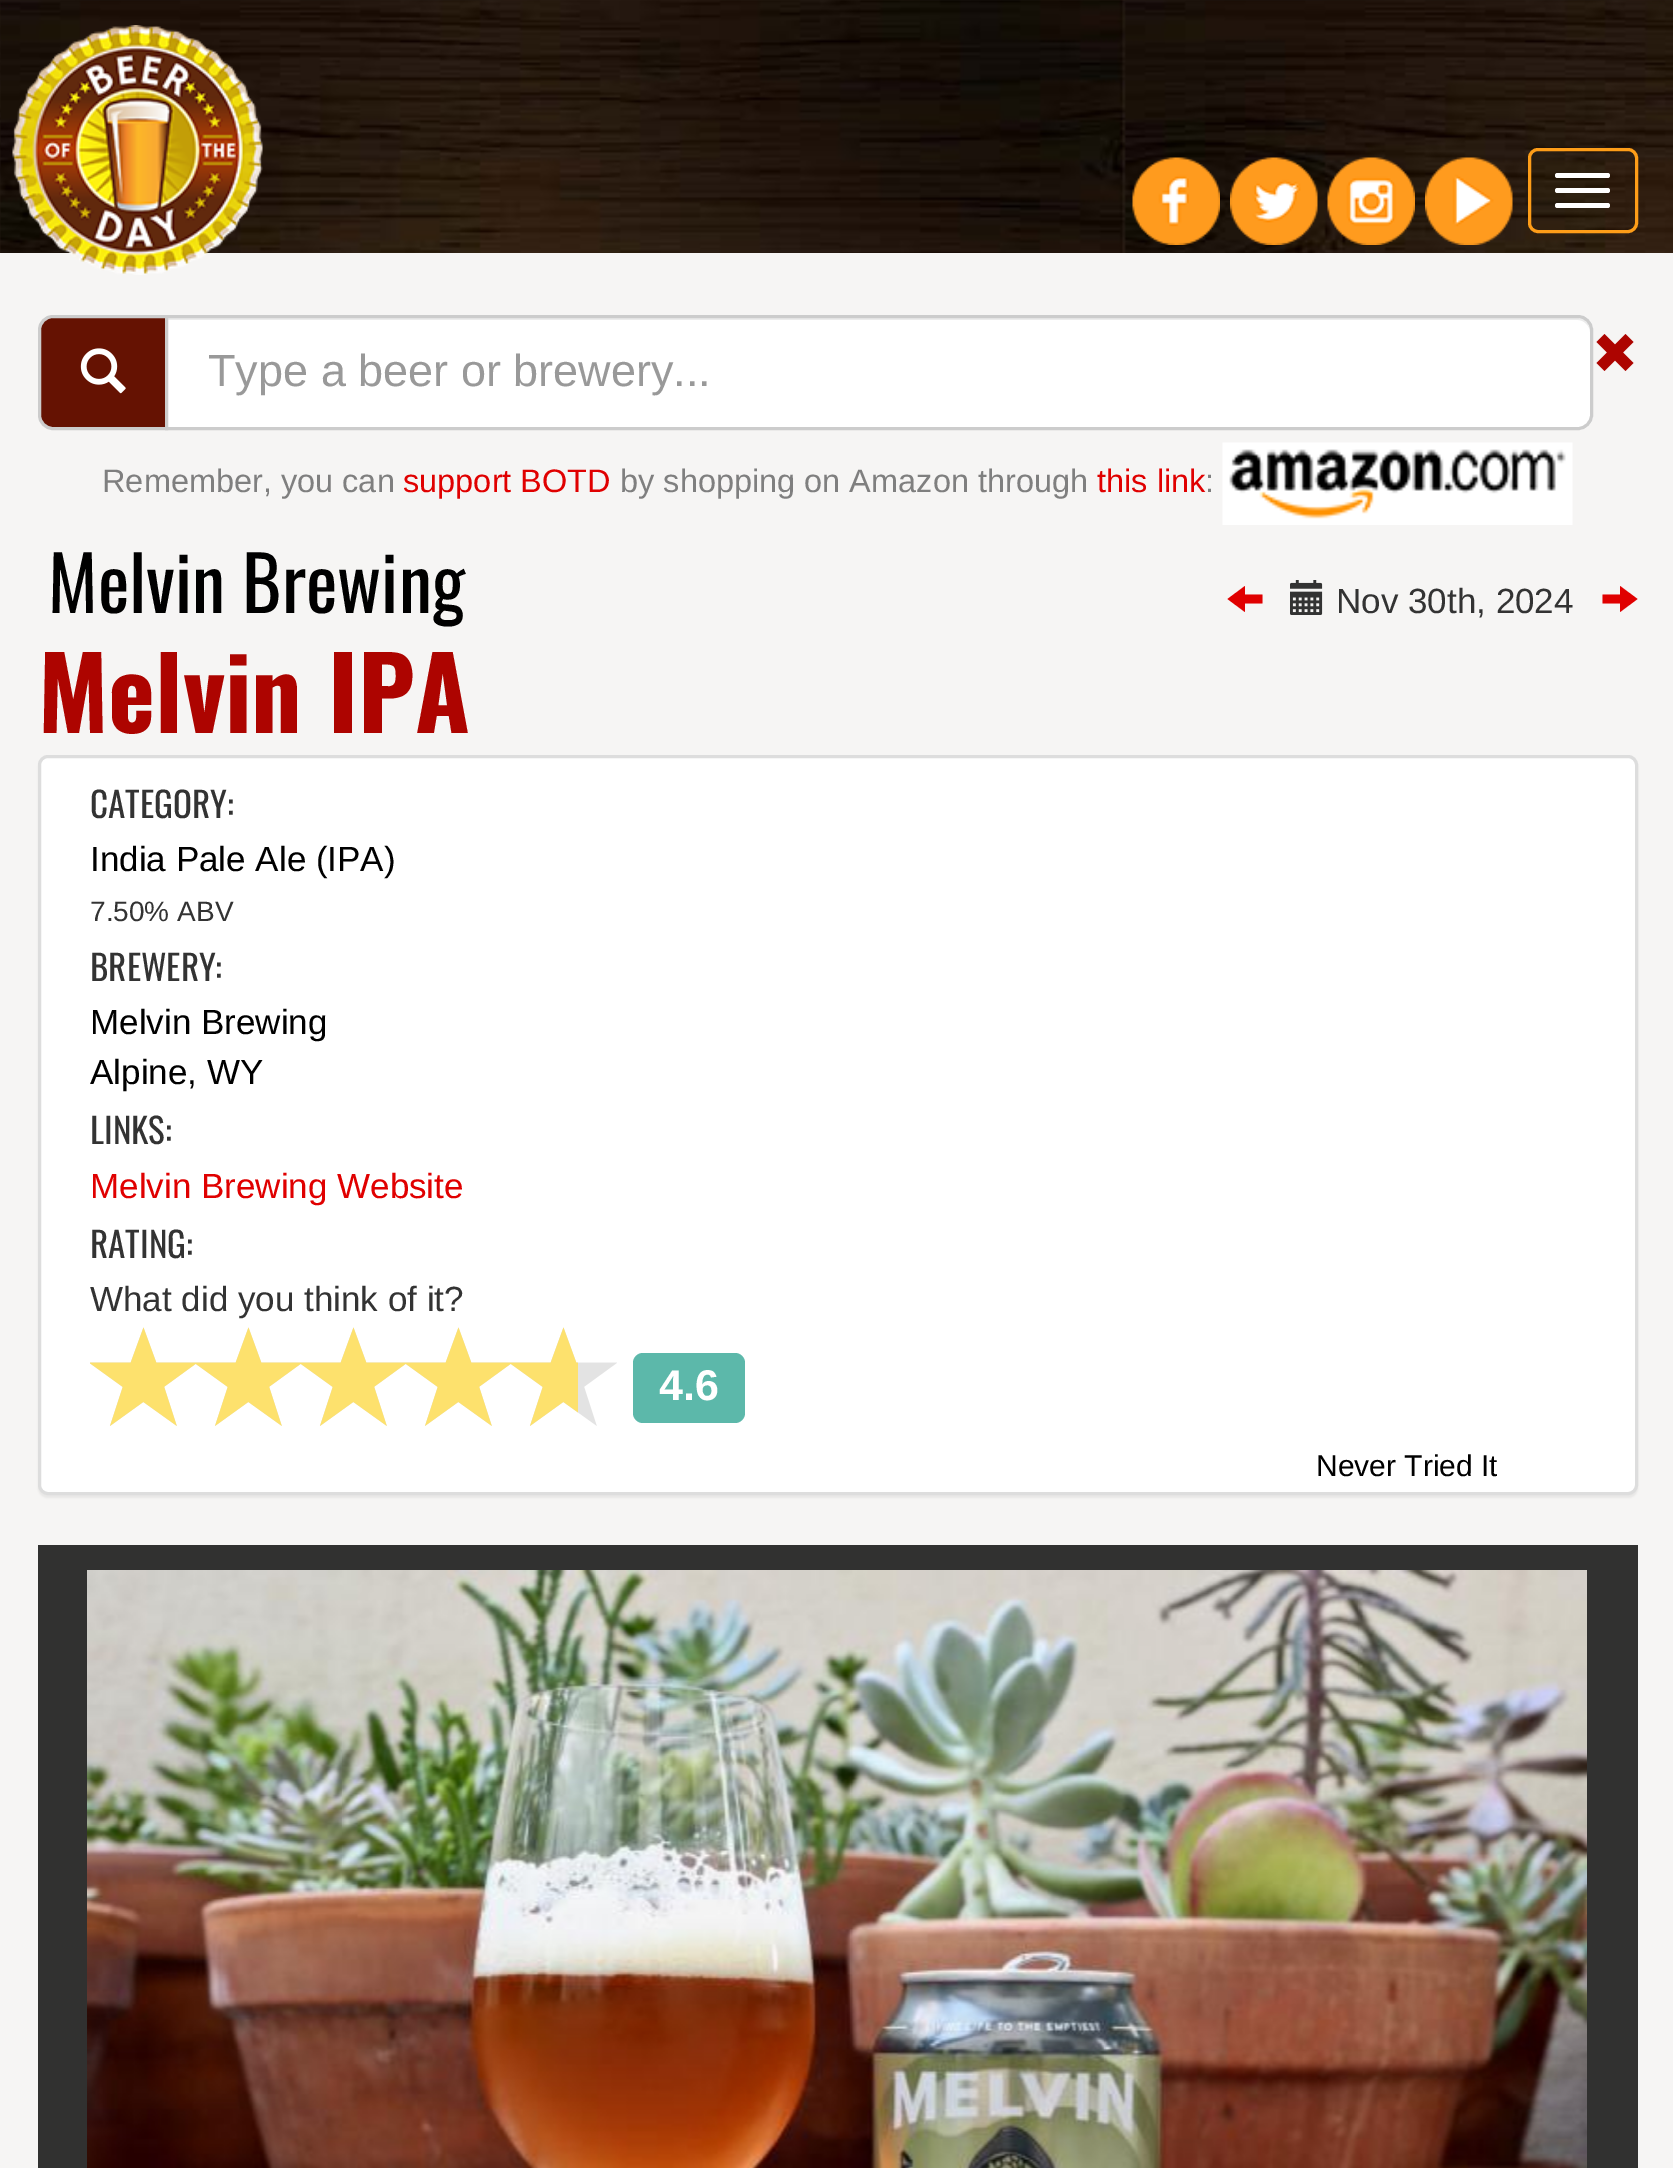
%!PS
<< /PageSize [1673 2168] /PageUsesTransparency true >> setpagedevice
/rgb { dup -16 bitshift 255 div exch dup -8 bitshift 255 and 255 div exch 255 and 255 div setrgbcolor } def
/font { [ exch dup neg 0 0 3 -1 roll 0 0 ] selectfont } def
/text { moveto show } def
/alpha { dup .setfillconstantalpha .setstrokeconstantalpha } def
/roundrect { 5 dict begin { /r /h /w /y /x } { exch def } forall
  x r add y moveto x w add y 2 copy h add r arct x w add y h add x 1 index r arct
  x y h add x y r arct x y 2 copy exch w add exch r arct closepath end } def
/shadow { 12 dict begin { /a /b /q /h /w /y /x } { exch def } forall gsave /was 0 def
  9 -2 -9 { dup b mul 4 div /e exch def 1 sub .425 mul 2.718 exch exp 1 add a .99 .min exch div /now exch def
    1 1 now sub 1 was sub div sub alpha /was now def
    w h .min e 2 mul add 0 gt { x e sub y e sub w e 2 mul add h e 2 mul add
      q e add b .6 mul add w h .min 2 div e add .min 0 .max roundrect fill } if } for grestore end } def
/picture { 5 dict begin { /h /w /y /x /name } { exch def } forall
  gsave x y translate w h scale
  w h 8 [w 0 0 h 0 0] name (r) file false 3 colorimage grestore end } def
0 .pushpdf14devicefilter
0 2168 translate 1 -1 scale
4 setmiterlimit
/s1 { /LiberationSans-Regular 45 font 16#999999 rgb } def
/s2 { /LiberationSans-Regular 32.5 font 16#7F7F7F rgb } def
/s3 { /LiberationSans-Regular 32.5 font 16#E00000 rgb } def
/s4 { /Oswald-Regular 75 font 16#000000 rgb } def
/s5 { /LiberationSans-Regular 35 font 16#333333 rgb } def
/s6 { /Oswald-Bold 100 font 16#AD0400 rgb } def
/s7 { /Oswald-Regular 35 font 16#333333 rgb } def
/s8 { /LiberationSans-Regular 35 font 16#000000 rgb } def
/s9 { /LiberationSans-Regular 28 font 16#333333 rgb } def
/s10 { /LiberationSans-Regular 35 font 16#E00000 rgb } def
/s11 { /LiberationSans-Bold 43 font 16#FFFFFF rgb } def
/s12 { /LiberationSans-Regular 30 font 16#000000 rgb } def
16#FFFFFF rgb
0 0 1673 2168 rectfill
(pic1.raw) 0 0 1673 253 picture
16#F6F5F4 rgb
0 253 1673 1915 rectfill
(pic2.raw) 12 25 251 250 picture
(pic3.raw) 1132 157 88 88 picture
(pic4.raw) 1230 157 88 88 picture
(pic5.raw) 1327 157 88 88 picture
(pic6.raw) 1425 157 88 88 picture
16#FE9D18 rgb
3 setlinewidth
1529.5 149.5 107 82 8.5 roundrect stroke
16#FFFFFF rgb
1555 173 55 5 2.5 roundrect fill
1555 188 55 5 2.5 roundrect fill
1555 203 55 5 2.5 roundrect fill
16#651202 rgb
53 316.5 moveto 166.5 316.5 lineto 166.5 428.5 lineto 53 428.5 lineto 45.5 428.5 39.5 422.5 39.5 415 curveto 39.5 330 lineto 39.5 322.5 45.5 316.5 53 316.5 curveto closepath gsave fill grestore
16#CCCCCC rgb
stroke
(pic7.raw) 80 348 46 46 picture
16#FFFFFF rgb
165 315 moveto 1578 315 lineto 1586.5 315 1593 321.5 1593 330 curveto 1593 415 lineto 1593 423.5 1586.5 430 1578 430 curveto 165 430 lineto closepath fill
16#ECECEC rgb
168 320 moveto 1578 320 lineto 1584 320 1590 326 1590 332 curveto 1590 325 1585 318 1577 318 curveto 168 318 lineto closepath fill
16#CCCCCC rgb
166.5 316.5 moveto 1578 316.5 lineto 1585.5 316.5 1591.5 322.5 1591.5 330 curveto 1591.5 415 lineto 1591.5 422.5 1585.5 428.5 1578 428.5 curveto 166.5 428.5 lineto closepath stroke
s1
(Type a beer or brewery...) 208 386 text
s2
(Remember, you can) 102 492 text
s3
(support BOTD) 403 492 text
s2
(by shopping on Amazon through) 620 492 text
s3
(this link) 1097 492 text
s2
(:) 1205 492 text
(pic8.raw) 1222 442 351 83 picture
16#AD0400 rgb
1596.5 363 moveto 1607 352.5 lineto 1596.5 342 lineto 1604.5 334 lineto 1615 344.5 lineto 1625.5 334 lineto 1633.5 342 lineto 1623 352.5 lineto 1633.5 363 lineto 1625.5 371 lineto 1615 360.5 lineto 1604.5 371 lineto closepath fill
s4
(Melvin Brewing) 48 613 text
16#E00000 rgb
1227.5 599 moveto 1245 586 lineto 1245 594.5 lineto 1262.5 594.5 lineto 1262.5 603.5 lineto 1245 603.5 lineto 1245 612 lineto closepath fill
(pic9.raw) 1290 580 33 35 picture
s5
(Nov 30th, 2024) 1336 613 text
16#E00000 rgb
1602.5 603.5 moveto 1602.5 594.5 lineto 1620 594.5 lineto 1620 586 lineto 1637.5 599 lineto 1620 612 lineto 1620 603.5 lineto closepath fill
s6
(Melvin IPA) 38 733 text
16#000000 rgb
38 758 1600 740 10 1 0.05 shadow
16#FFFFFF rgb
39.5 756.5 1597 737 8.5 roundrect gsave fill grestore
16#DDDDDD rgb
stroke
s7
(CATEGORY:) 90 818 text
s8
(India Pale Ale \(IPA\)) 90 871 text
s9
(7.50% ABV) 90 921 text
s7
(BREWERY:) 90 981 text
s8
(Melvin Brewing) 90 1034 text
(Alpine, WY) 90 1084 text
s7
(LINKS:) 90 1144 text
s10
(Melvin Brewing Website) 90 1198 text
s7
(RATING:) 90 1258 text
s5
(What did you think of it?) 90 1311 text
(pic10.raw) 90 1327 527 99 picture
(pic11.raw) 90 1327 488 99 picture
16#5CB8AA rgb
633 1353 112 70 10 roundrect fill
s11
(4.6) 659 1400 text
s12
(Never Tried It) 1316 1476 text
16#313130 rgb
38 1545 1600 623 rectfill
(pic12.raw) 87 1570 1500 598 picture
.poppdf14devicefilter showpage
